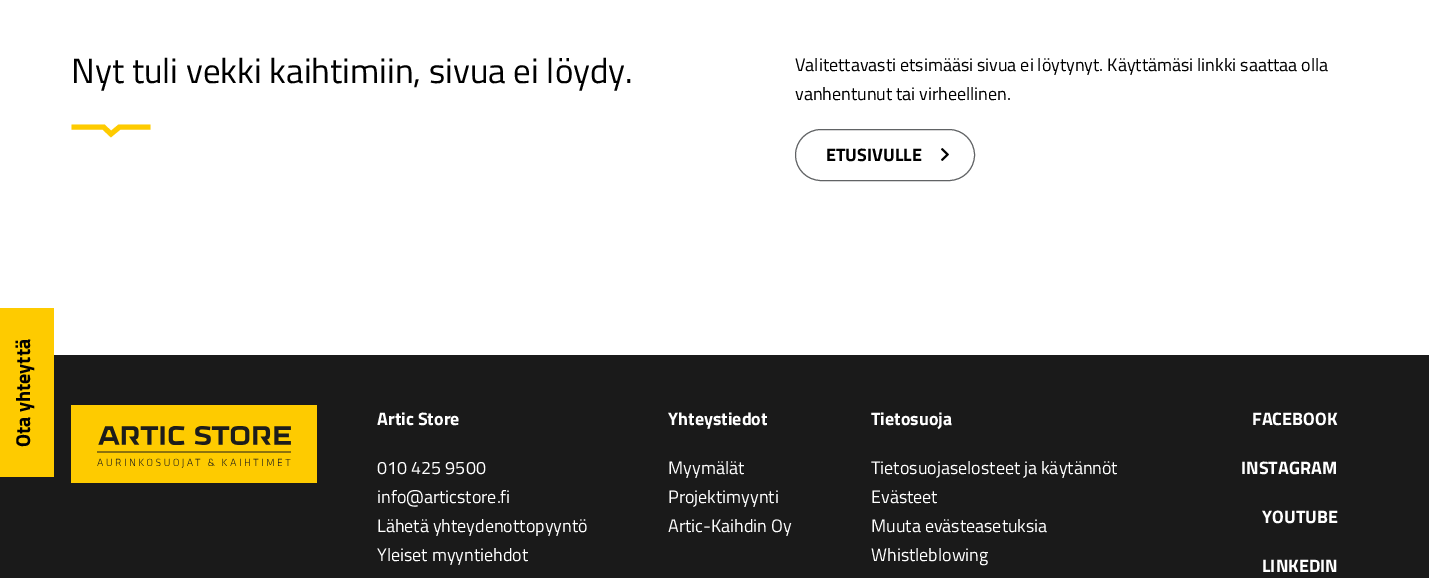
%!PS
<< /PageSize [1429 578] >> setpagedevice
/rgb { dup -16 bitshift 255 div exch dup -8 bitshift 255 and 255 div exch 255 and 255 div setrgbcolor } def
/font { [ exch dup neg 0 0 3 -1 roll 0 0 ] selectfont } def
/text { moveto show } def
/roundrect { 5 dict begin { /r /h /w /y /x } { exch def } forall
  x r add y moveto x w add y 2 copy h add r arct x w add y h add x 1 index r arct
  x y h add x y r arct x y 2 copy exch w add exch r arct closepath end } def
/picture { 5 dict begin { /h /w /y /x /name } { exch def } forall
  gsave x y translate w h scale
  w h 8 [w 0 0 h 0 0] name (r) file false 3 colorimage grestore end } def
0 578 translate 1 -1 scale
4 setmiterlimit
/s1 { /TitilliumWeb-Regular 35 font 16#000000 rgb } def
/s2 { /TitilliumWeb-Regular 18 font 16#000000 rgb } def
/s3 { /TitilliumWeb-Bold 18 font 16#000000 rgb } def
/s4 { /TitilliumWeb-Bold 18 font 16#FFFFFF rgb } def
/s5 { /TitilliumWeb-Regular 18 font 16#FFFFFF rgb } def
16#FFFFFF rgb
0 0 1429 578 rectfill
s1
(Nyt tuli vekki kaihtimiin, sivua ei löydy.) 71 83 text
16#FECB00 rgb
5 setlinewidth
2 setlinecap
74 127 moveto 103.5 127 lineto 111 134 lineto 119.5 127 lineto 148 127 lineto stroke
s2
(Valitettavasti etsimääsi sivua ei löytynyt. Käyttämäsi linkki saattaa olla) 795 71 text
(vanhentunut tai virheellinen.) 795 100 text
16#616365 rgb
1 setlinewidth
0 setlinecap
795.5 129.5 179 51 25.5 roundrect stroke
s3
(ETUSIVULLE) 826 161 text
(pic1.raw) 941 148 8 13 picture
16#1A1A1A rgb
0 355 1429 223 rectfill
16#FECB00 rgb
0 308 54 169 rectfill
/TitilliumWeb-Bold 20 font
16#000000 rgb
gsave 30 447 translate -90 rotate 0 0 moveto (Ota yhteyttä) show grestore
(pic2.raw) 71 405 246 78 picture
s4
(Artic Store) 377 425 text
s5
(010 425 9500) 377 474 text
(info@articstore.fi) 377 503 text
(Lähetä yhteydenottopyyntö) 377 532 text
(Yleiset myyntiehdot) 377 561 text
s4
(Yhteystiedot) 668 425 text
s5
(Myymälät) 668 474 text
(Projektimyynti) 668 503 text
(Artic-Kaihdin Oy) 668 532 text
s4
(Tietosuoja) 871 425 text
s5
(Tietosuojaselosteet ja käytännöt) 871 474 text
(Evästeet) 871 503 text
(Muuta evästeasetuksia) 871 532 text
(Whistleblowing) 871 561 text
s4
(FACEBOOK) 1252 425 text
(INSTAGRAM) 1241 474 text
(YOUTUBE) 1262 523 text
(LINKEDIN) 1262 572 text
showpage
